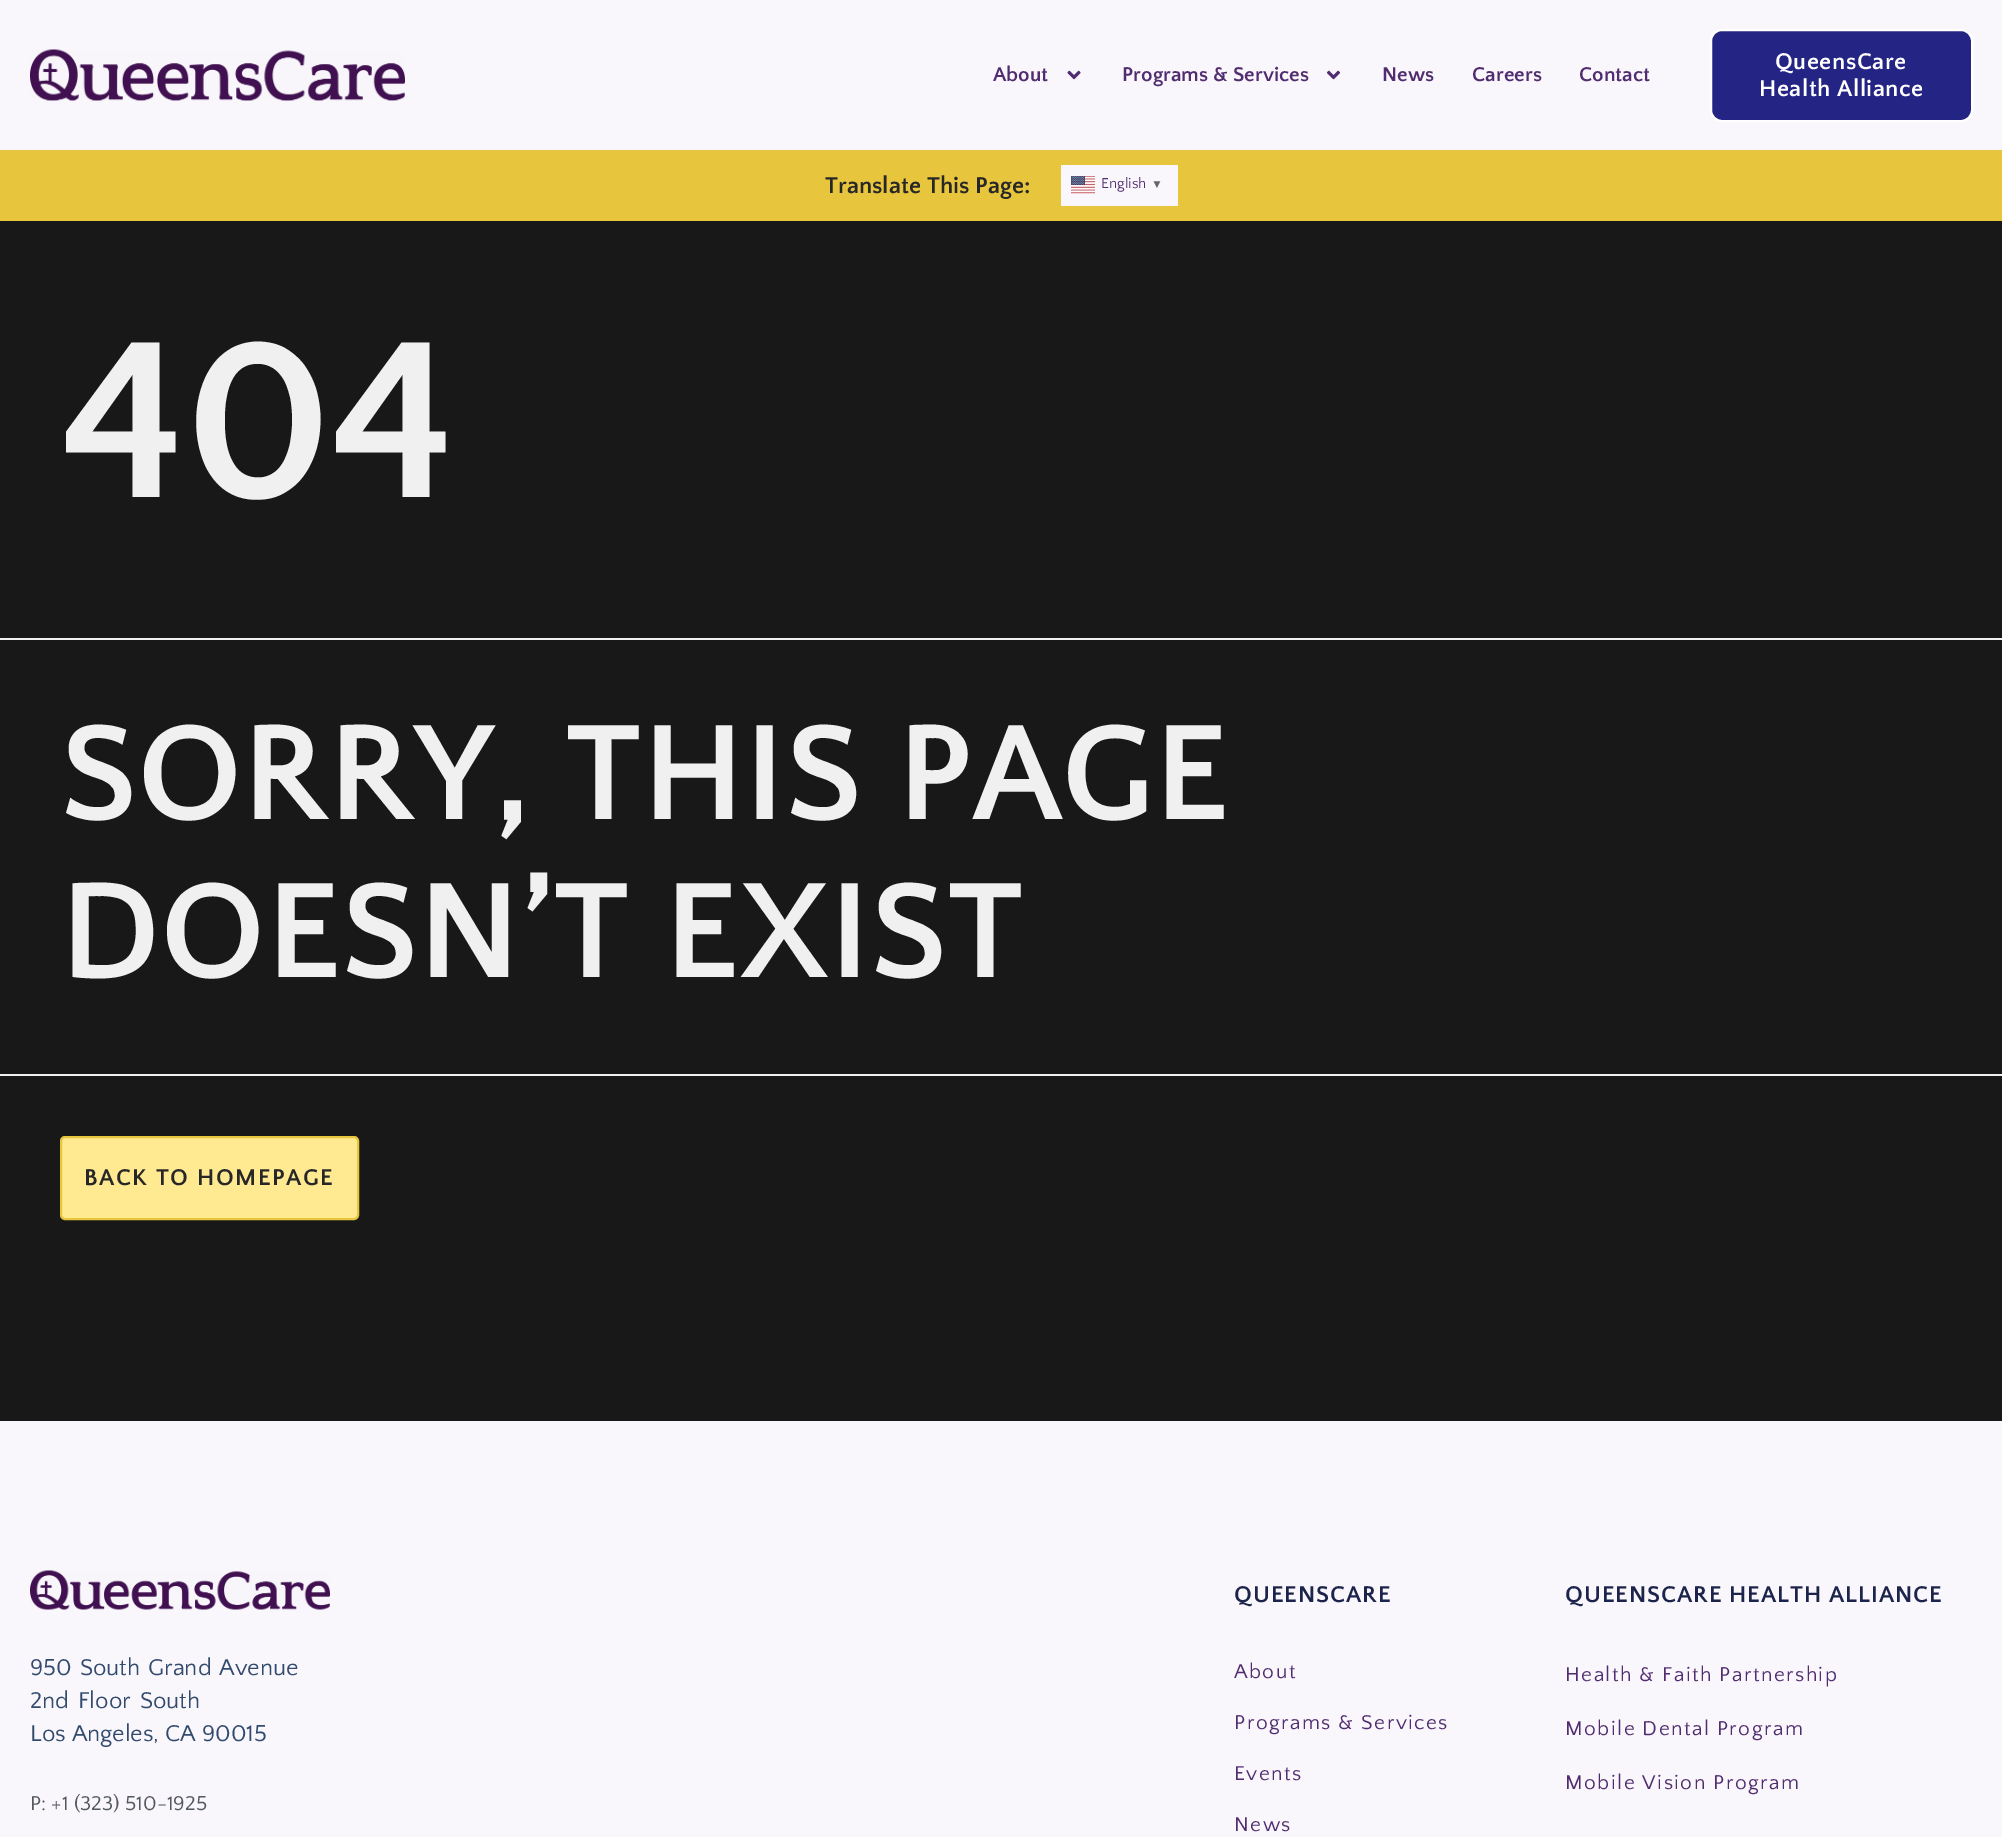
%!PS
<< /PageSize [2002 1837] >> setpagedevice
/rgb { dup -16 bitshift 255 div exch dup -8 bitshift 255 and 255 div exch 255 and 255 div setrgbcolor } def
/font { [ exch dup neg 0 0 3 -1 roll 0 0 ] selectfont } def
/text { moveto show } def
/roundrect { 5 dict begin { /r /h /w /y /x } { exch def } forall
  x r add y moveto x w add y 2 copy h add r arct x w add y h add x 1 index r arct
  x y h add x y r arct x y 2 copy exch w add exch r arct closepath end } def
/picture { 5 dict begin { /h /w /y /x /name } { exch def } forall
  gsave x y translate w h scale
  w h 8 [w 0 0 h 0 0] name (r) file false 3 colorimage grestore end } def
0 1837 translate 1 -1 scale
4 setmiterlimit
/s1 { /QuattrocentoSans-Bold 21 font 16#512D70 rgb } def
/s2 { /QuattrocentoSans-Bold 24 font 16#282728 rgb } def
/s3 { /QuattrocentoSans-Regular 15 font 16#512D70 rgb } def
/s4 { /LiberationSans-Bold 12 font 16#666666 rgb } def
/s5 { /QuattrocentoSans-Regular 24 font 16#324A6D rgb } def
/s6 { /QuattrocentoSans-Regular 21 font 16#54595F rgb } def
16#181818 rgb
0 0 2002 1837 rectfill
16#F9F7FC rgb
0 0 2002 150 rectfill
(pic1.raw) 30 49 375 52 picture
s1
(About) 993 81 text
(pic2.raw) 1067 70 14 10 picture
(Programs & Services) 1122 81 text
(pic3.raw) 1326 70 14 10 picture
(News) 1382 81 text
(Careers) 1472 81 text
(Contact) 1579 81 text
16#242485 rgb
1711 30 261 91 11 roundrect gsave fill grestore
16#FFFFFF rgb
2 setlinewidth
stroke
/QuattrocentoSans-Bold 24 font
1775 69 moveto 0.5 0 (QueensCare) ashow
1759 96 moveto 0.5 0 (Health Alliance) ashow
16#E7C63D rgb
0 150 2002 71 rectfill
s2
(Translate This Page:) 825 193 text
16#F9F7FC rgb
1061 165 117 41 rectfill
(pic4.raw) 1071 176 24 18 picture
s3
(English) 1101 188 text
s4
(▼) 1151 188 text
/QuattrocentoSans-Bold 234 font
16#F0F0F0 rgb
60 497 moveto -2 0 (404) ashow
0 638 2002 2 rectfill
0 1074 2002 2 rectfill
/QuattrocentoSans-Bold 142.5 font
60 819 moveto -0.4 0 (SORRY, THIS PAGE) ashow
60 977 moveto -0.4 0 (DOESN’T EXIST) ashow
16#FFEA92 rgb
61 1137 297 82 4 roundrect gsave fill grestore
16#E7C63D rgb
stroke
/QuattrocentoSans-Bold 24 font
16#282728 rgb
84 1185 moveto 1.5 0 (BACK TO HOMEPAGE) ashow
16#F9F7FC rgb
0 1421 2002 416 rectfill
(pic5.raw) 30 1570 300 40 picture
/QuattrocentoSans-Regular 24 font
16#324A6D rgb
30 1675 moveto 2 0 32 (950 South Grand Avenue) widthshow
30 1708 moveto 3 0 32 (2nd Floor South) widthshow
(Los Angeles, CA 90015) 30 1741 text
s6
(P: +1 \(323\) 510-1925) 30 1810 text
/QuattrocentoSans-Bold 24 font
16#1C244B rgb
1234 1602 moveto 0.95 0 (QUEENSCARE) ashow
/QuattrocentoSans-Regular 21 font
16#512D70 rgb
1234 1678 moveto 1.45 0 (About) ashow
1234 1729 moveto 1.45 0 (Programs & Services) ashow
1234 1780 moveto 1.45 0 (Events) ashow
1234 1831 moveto 1.45 0 (News) ashow
/QuattrocentoSans-Bold 24 font
16#1C244B rgb
1565 1602 moveto 0.95 0 (QUEENSCARE HEALTH ALLIANCE) ashow
/QuattrocentoSans-Regular 21 font
16#512D70 rgb
1565 1681 moveto 1.45 0 (Health & Faith Partnership) ashow
1565 1735 moveto 1.45 0 (Mobile Dental Program) ashow
1565 1789 moveto 1.45 0 (Mobile Vision Program) ashow
showpage
